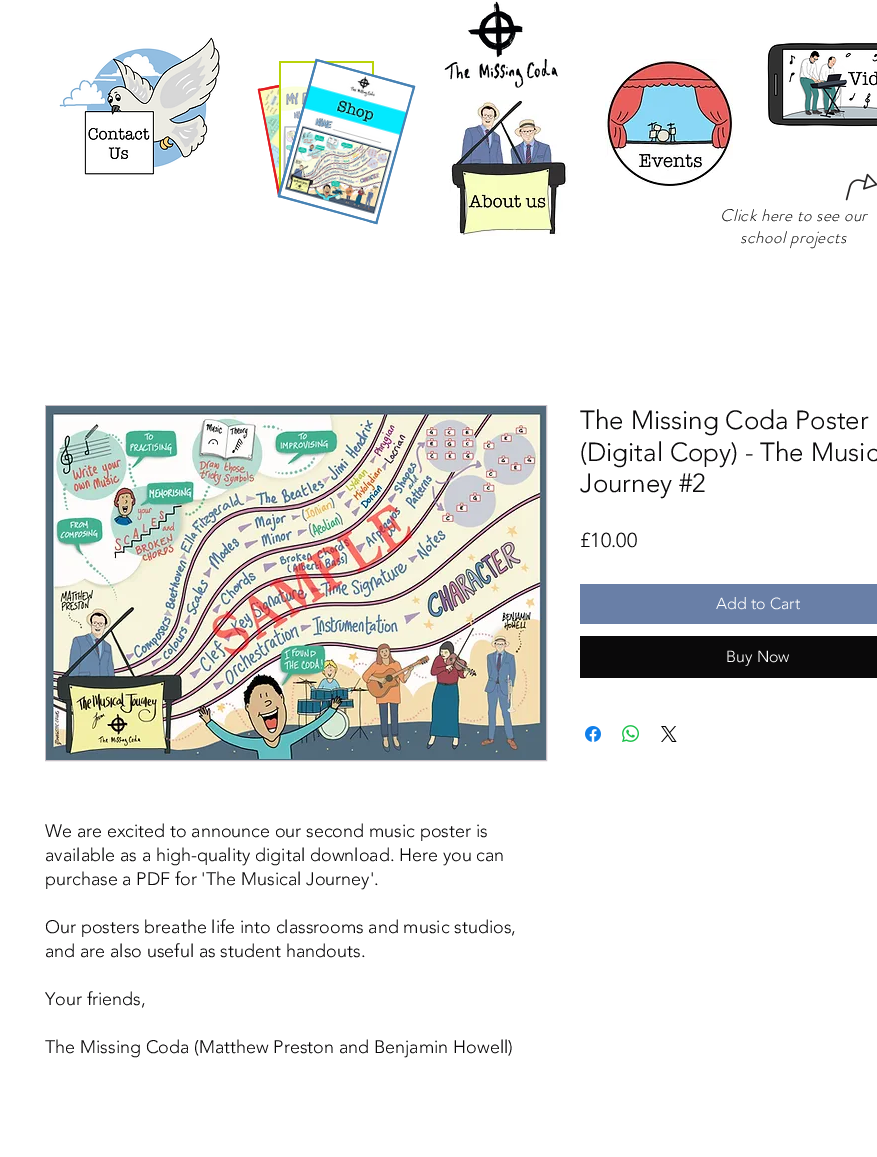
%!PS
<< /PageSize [877 1157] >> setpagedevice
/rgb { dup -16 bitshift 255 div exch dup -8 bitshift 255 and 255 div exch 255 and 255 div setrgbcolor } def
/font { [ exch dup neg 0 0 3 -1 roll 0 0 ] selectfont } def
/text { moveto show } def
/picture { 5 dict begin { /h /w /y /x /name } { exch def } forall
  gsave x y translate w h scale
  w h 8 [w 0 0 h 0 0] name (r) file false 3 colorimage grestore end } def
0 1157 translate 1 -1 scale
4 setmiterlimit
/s1 { /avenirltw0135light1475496-Light 26 font 16#0A090A rgb } def
/s2 { /avenirltw0135light1475496-Light 20 font 16#0A090A rgb } def
/s3 { /avenirltw0135light1475496-Light 16 font 16#FFFFFF rgb } def
/s4 { /avenirltw0135light1475496-Light 18 font 16#0A090A rgb } def
16#FFFFFF rgb
0 0 877 1157 rectfill
(pic1.raw) 59 37 161 138 picture
16#E21C21 rgb
258 89 moveto 364 69 lineto 384 175 lineto 278 195 lineto closepath fill
2 setlinewidth
259 90 moveto 363 70 lineto 383 174 lineto 279 194 lineto closepath stroke
16#B9D309 rgb
279 61 95 130 rectfill
(pic3.raw) 281 63 91 121 picture
(pic4.raw) 260 87 19 100 picture
16#4682B4 rgb
317 61 moveto 412 88.5 lineto 374 222 lineto 279 194.5 lineto closepath stroke
316 59 moveto 415 86 lineto 377 224 lineto 278 197 lineto closepath fill
316.5 60 moveto 414 87 lineto 376.5 223 lineto 279 196 lineto closepath stroke
(pic2.raw) 280 61 133 161 picture
(pic5.raw) 444 1 114 87 picture
(pic6.raw) 605 59 128 128 picture
(pic7.raw) 767 43 110 84 picture
(pic8.raw) 449 100 119 136 picture
(pic9.raw) 845 173 32 28 picture
/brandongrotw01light-LightItalic 17 font
16#000000 rgb
720 221 moveto 0.5 0 (Click here to see our) ashow
740 243 moveto 0.5 0 (school) ashow
790 243 moveto 0.5 0 (projects) ashow
s1
(The Missing Coda Poster) 580 429 text
(\(Digital Copy\) - The Music) 580 461 text
(Journey #2) 580 492 text
s2
(£10.00) 580 547 text
16#697FA7 rgb
580 584 297 40 rectfill
s3
(Add to Cart) 716 609 text
16#0A090A rgb
580 636 297 42 rectfill
s3
(Buy Now) 726 662 text
(pic10.raw) 585 726 16 16 picture
(pic11.raw) 622 725 17 17 picture
(pic12.raw) 661 726 16 16 picture
16#C5BEC5 rgb
1 setlinewidth
45.5 405.5 501 355 rectstroke
(pic13.raw) 46 406 500 354 picture
s4
(We are excited to announce our second music poster is) 45 837 text
(available as a high-quality digital download. Here you can) 45 861 text
(purchase a PDF for 'The Musical Journey'.) 45 885 text
(Our posters breathe life into classrooms and music studios,) 45 933 text
(and are also useful as student handouts.) 45 957 text
(Your friends,) 45 1005 text
(The Missing Coda \(Matthew Preston and Benjamin Howell\)) 45 1053 text
showpage
